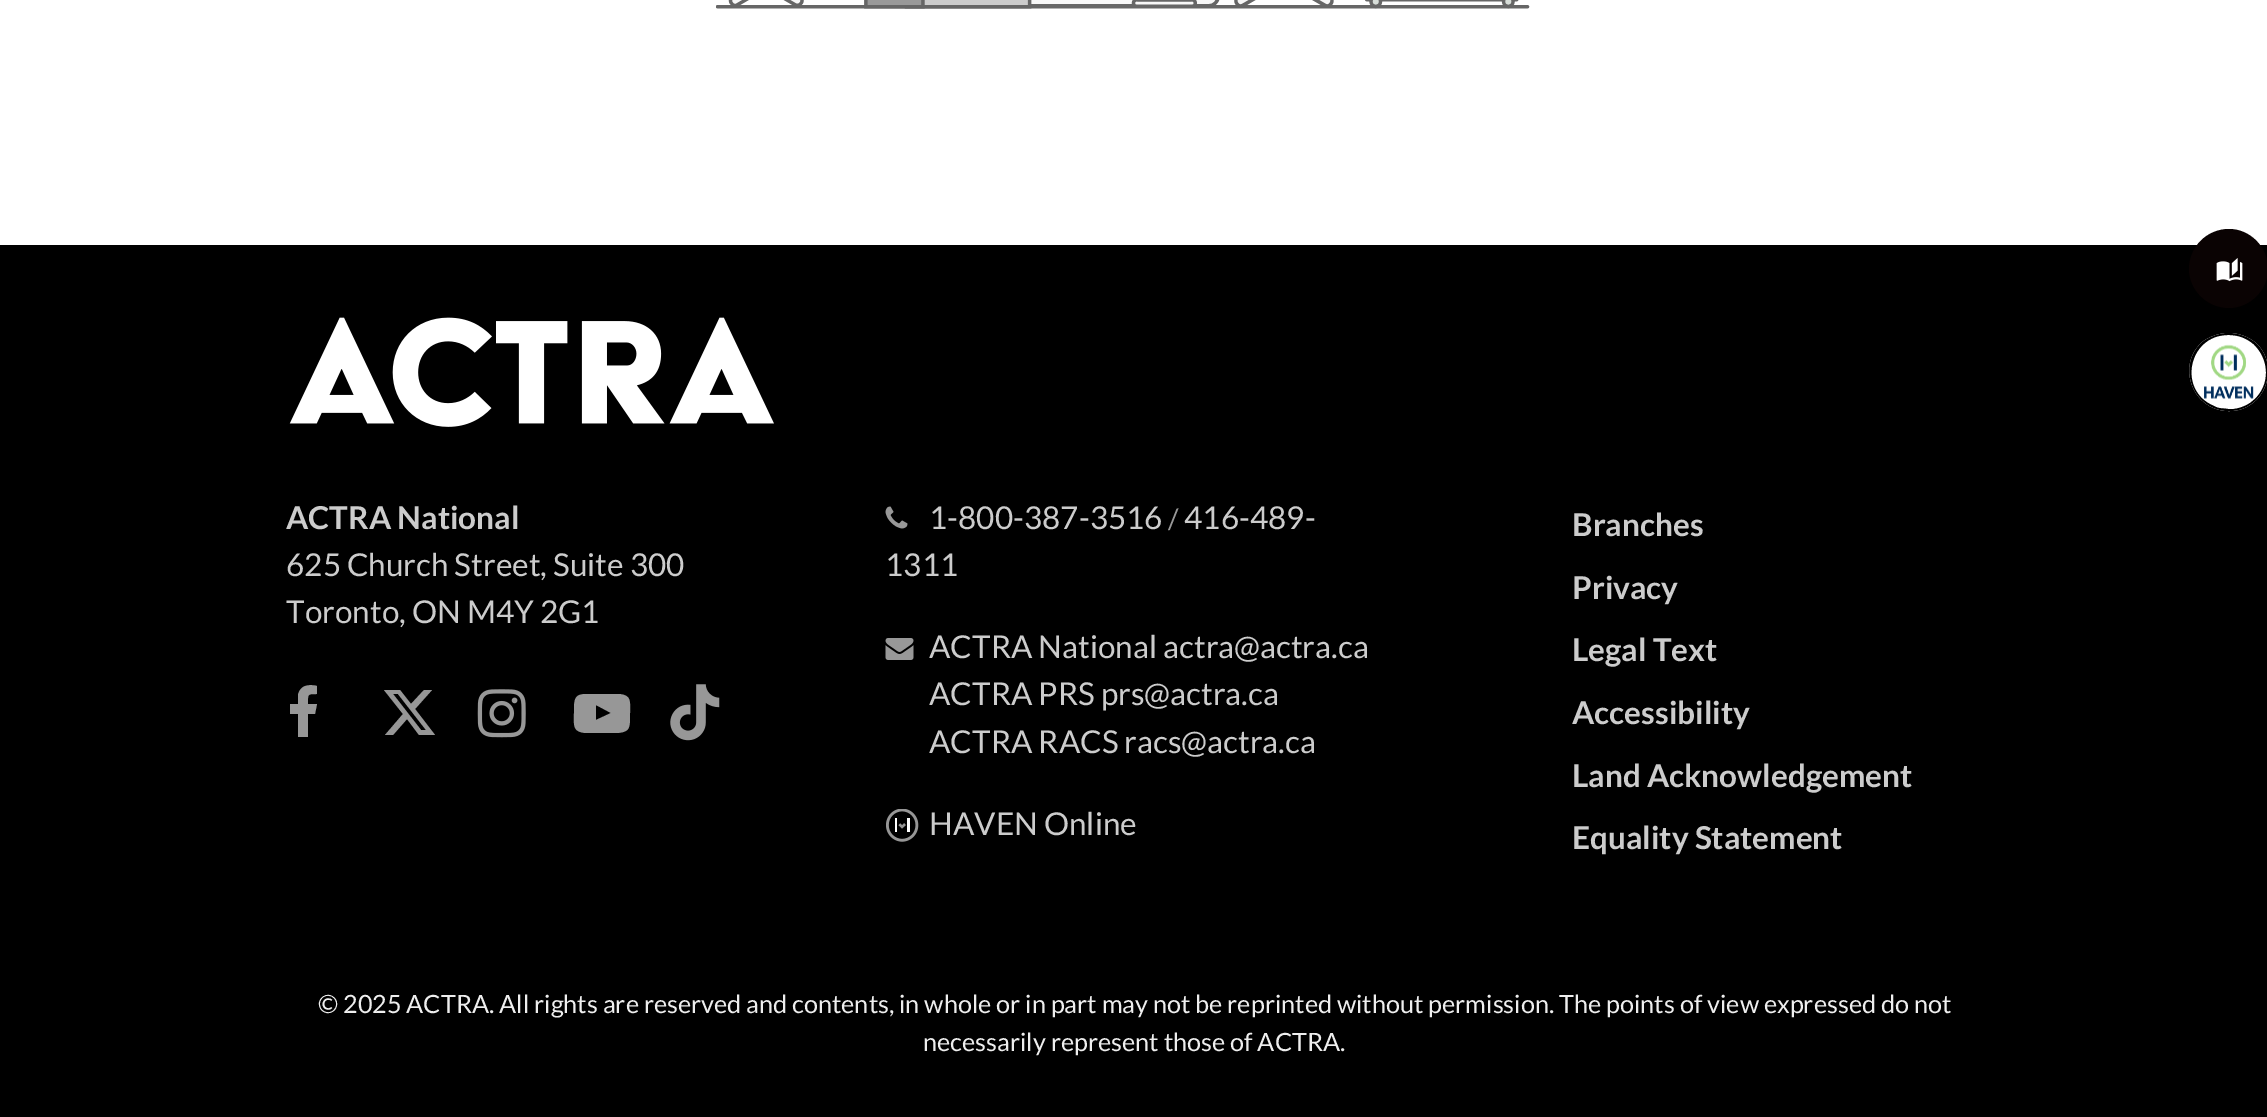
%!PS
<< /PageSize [2267 1117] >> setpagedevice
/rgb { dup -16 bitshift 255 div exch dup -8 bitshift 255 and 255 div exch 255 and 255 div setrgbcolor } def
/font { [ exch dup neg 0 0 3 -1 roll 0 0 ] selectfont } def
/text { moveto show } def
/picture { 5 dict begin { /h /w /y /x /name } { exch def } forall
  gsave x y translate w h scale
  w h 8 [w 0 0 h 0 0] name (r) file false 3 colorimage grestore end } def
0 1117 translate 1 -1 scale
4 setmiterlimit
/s1 { /Lato-Bold 31.5 font 16#CCCCCC rgb } def
/s2 { /Lato-Regular 31.5 font 16#CCCCCC rgb } def
/s3 { /Lato-Regular 28 font 16#989898 rgb } def
/s4 { /Lato-Regular 25.2 font 16#EEEEEE rgb } def
16#000000 rgb
0 0 2267 1117 rectfill
16#FFFFFF rgb
0 0 2267 245 rectfill
16#0A0303 rgb
2229 229 moveto 2207 229 2189 247 2189 269 curveto 2189 290 2207 308 2229 308 curveto 2250 308 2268 290 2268 269 curveto 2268 247 2250 229 2229 229 curveto closepath fill
(pic1.raw) 2216 258 27 24 picture
(pic2.raw) 716 0 814 9 picture
16#FFFFFF rgb
2228 333 moveto 2239 333 2249 337 2257 344 curveto 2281 369 2263 412 2228 411 curveto 2191 410 2175 362 2205 340 curveto 2212 336 2220 333 2228 333 curveto closepath fill
16#000000 rgb
2228 333 moveto 2239 333 2249 337 2257 344 curveto 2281 369 2263 412 2228 411 curveto 2191 410 2175 362 2205 340 curveto 2212 336 2220 333 2228 333 curveto closepath 2228 335 moveto 2188 335 2177 391 2214 406 curveto 2219 409 2222 408 2228 409 curveto 2235 410 2244 407 2250 403 curveto 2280 382 2265 335 2229 335 curveto closepath eofill
(pic3.raw) 2204 344 50 55 picture
(pic4.raw) 289 317 485 110 picture
s1
(ACTRA National) 286 529 text
s2
(625 Church Street, Suite 300) 286 576 text
(Toronto, ON M4Y 2G1) 286 623 text
16#979797 rgb
317 686 moveto 317 694 lineto 307 694 308 694 308 704 curveto 317 704 lineto 315 714 lineto 308 714 lineto 308 737 lineto 298 737 lineto 298 714 lineto 290 714 lineto 290 704 lineto 298 704 lineto 298 695 lineto 300 685 309 684 317 686 curveto closepath fill
424 690 moveto 432 690 lineto 415 709 lineto 435 735 lineto 419 735 lineto 407 719 lineto 393 735 lineto 385 735 lineto 403 714 lineto 384 690 lineto 400 690 lineto 411 704 lineto closepath 421 730 moveto 426 730 lineto 398 694 lineto 393 694 lineto closepath fill
(pic5.raw) 477 689 49 49 picture
596 720 moveto 611 713 lineto 596 705 lineto closepath 602 694 moveto 619 694 lineto 632 695 630 702 630 714 curveto 630 728 630 732 617 733 curveto 586 733 lineto 572 732 574 725 574 713 curveto 574 699 574 694 587 694 curveto closepath fill
(pic6.raw) 670 684 50 57 picture
(pic7.raw) 885 506 23 23 picture
s2
(1-800-387-3516) 929 529 text
s3
(/) 1168 529 text
s2
(416-489-) 1184 529 text
(1311) 885 576 text
(pic8.raw) 885 638 29 22 picture
(ACTRA National actra@actra.ca) 929 658 text
(ACTRA PRS prs@actra.ca) 929 705 text
(ACTRA RACS racs@actra.ca) 929 753 text
(pic9.raw) 886 809 33 33 picture
(HAVEN Online) 929 835 text
s1
(Branches) 1572 536 text
(Privacy) 1572 599 text
(Legal Text) 1572 661 text
(Accessibility) 1572 724 text
(Land Acknowledgement) 1572 787 text
(Equality Statement) 1572 849 text
s4
(© 2025 ACTRA. All rights are reserved and contents, in whole or in part may not be reprinted without permission. The points of view expressed do not) 318 1013 text
(necessarily represent those of ACTRA.) 923 1051 text
showpage
